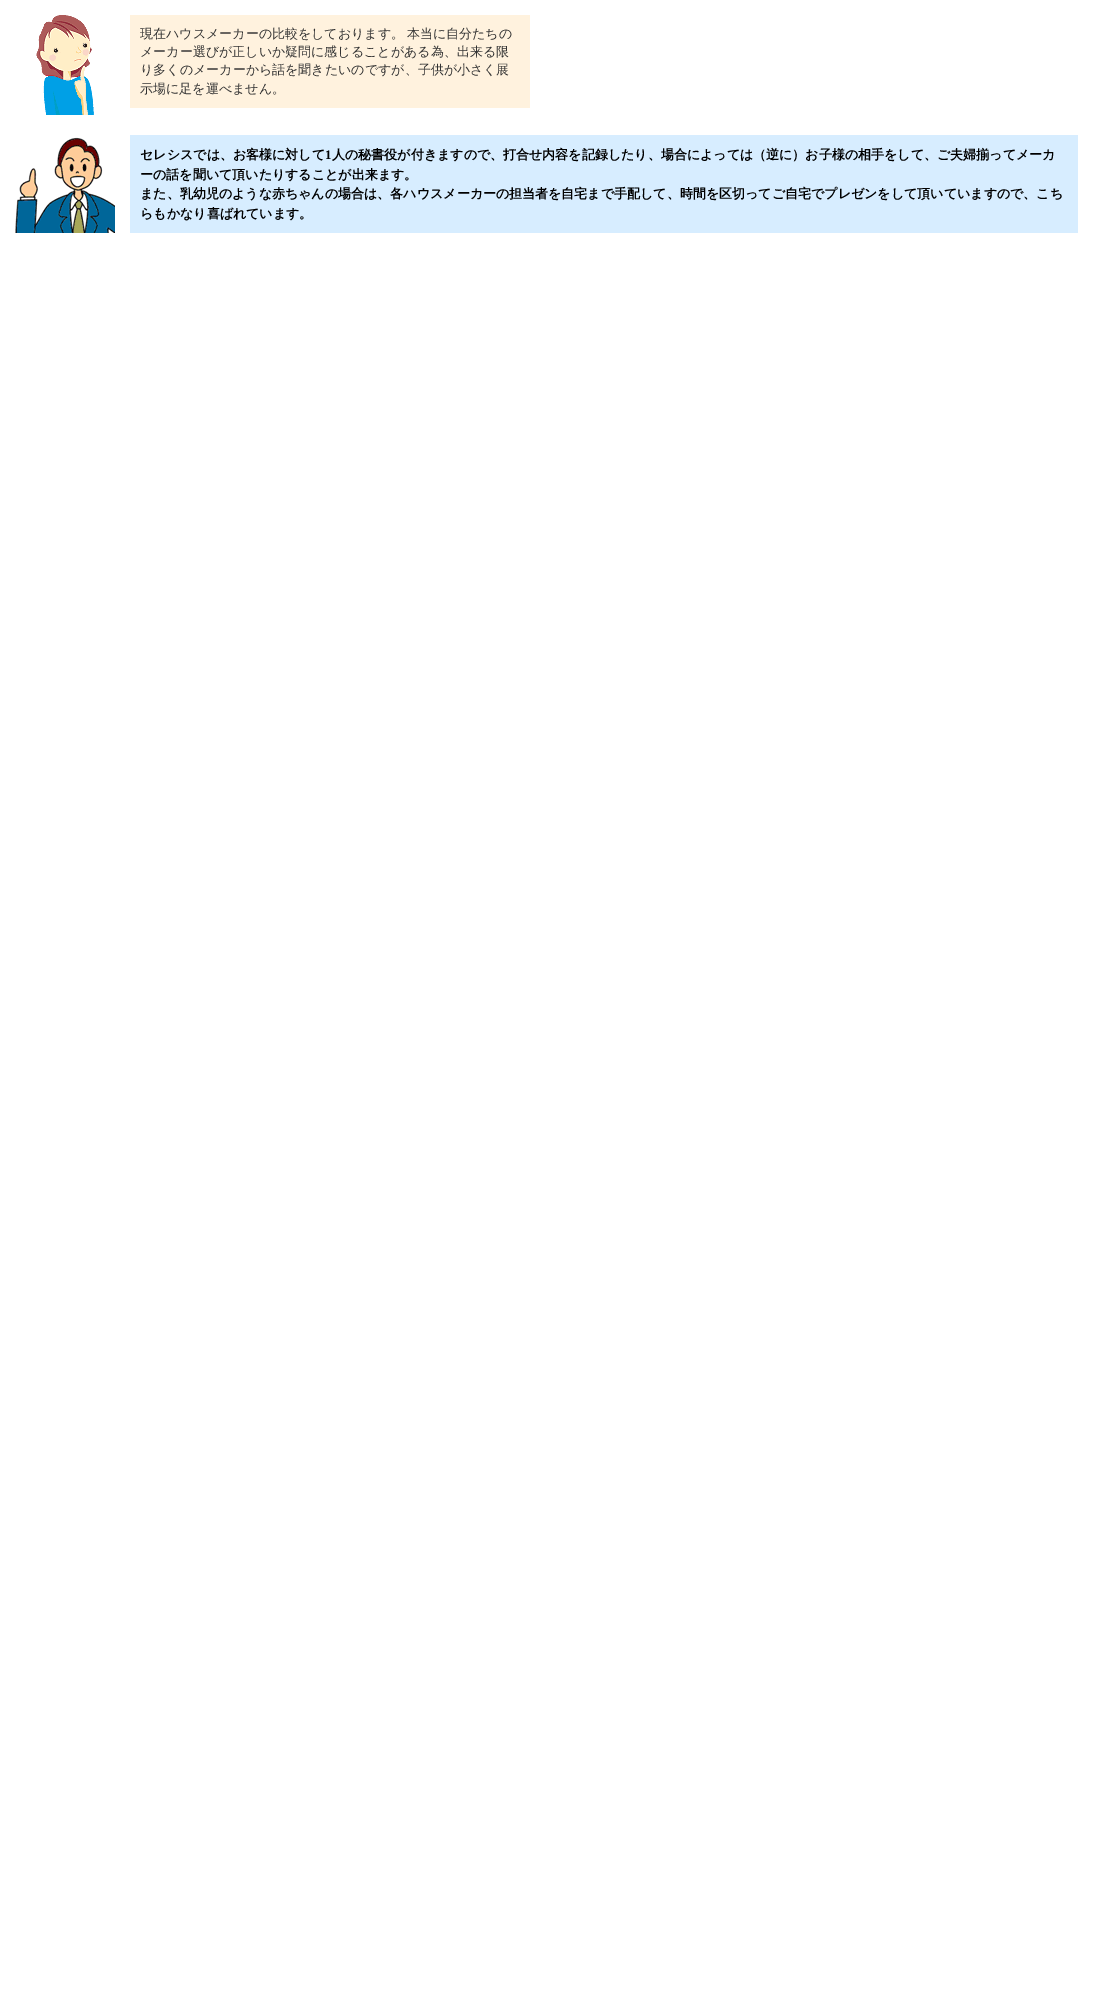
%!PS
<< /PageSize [1093 1999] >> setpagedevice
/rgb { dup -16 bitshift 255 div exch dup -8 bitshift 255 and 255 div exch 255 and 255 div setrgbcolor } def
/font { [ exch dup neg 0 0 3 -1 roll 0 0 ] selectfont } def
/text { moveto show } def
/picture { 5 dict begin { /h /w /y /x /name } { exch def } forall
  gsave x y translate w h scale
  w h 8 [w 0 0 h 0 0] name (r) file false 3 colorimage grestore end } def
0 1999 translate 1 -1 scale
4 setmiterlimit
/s1 { /WenQuanYiZenHei-Medium 13 font 16#333333 rgb } def
/s2 { /WenQuanYiZenHei-Bold 13 font 16#000000 rgb } def
/s3 { /LiberationSerif-Bold 13 font 16#000000 rgb } def
16#FFFFFF rgb
0 0 1093 1999 rectfill
(pic1.raw) 36 15 58 100 picture
16#FFF2DE rgb
130 15 400 93 rectfill
/WenQuanYiZenHei-Medium 13 font
16#333333 rgb
140 38 moveto -1 0 32 (現在ハウスメーカーの比較をしております。 本当に自分たちの) widthshow
(メーカー選びが正しいか疑問に感じることがある為、出来る限) 140 56 text
(り多くのメーカーから話を聞きたいのですが、子供が小さく展) 140 74 text
(示場に足を運べません。) 140 93 text
(pic2.raw) 15 137 100 96 picture
16#D7EDFF rgb
130 135 948 98 rectfill
s2
(セレシスでは、お客様に対して) 140 159 text
s3
(1) 325 159 text
s2
(人の秘書役が付きますので、打合せ内容を記録したり、場合によっては（逆に）お子様の相手をして、ご夫婦揃ってメーカ) 332 159 text
(ーの話を聞いて頂いたりすることが出来ます。) 140 179 text
(また、乳幼児のような赤ちゃんの場合は、各ハウスメーカーの担当者を自宅まで手配して、時間を区切ってご自宅でプレゼンをして頂いていますので、こち) 140 198 text
(らもかなり喜ばれています。) 140 218 text
showpage
